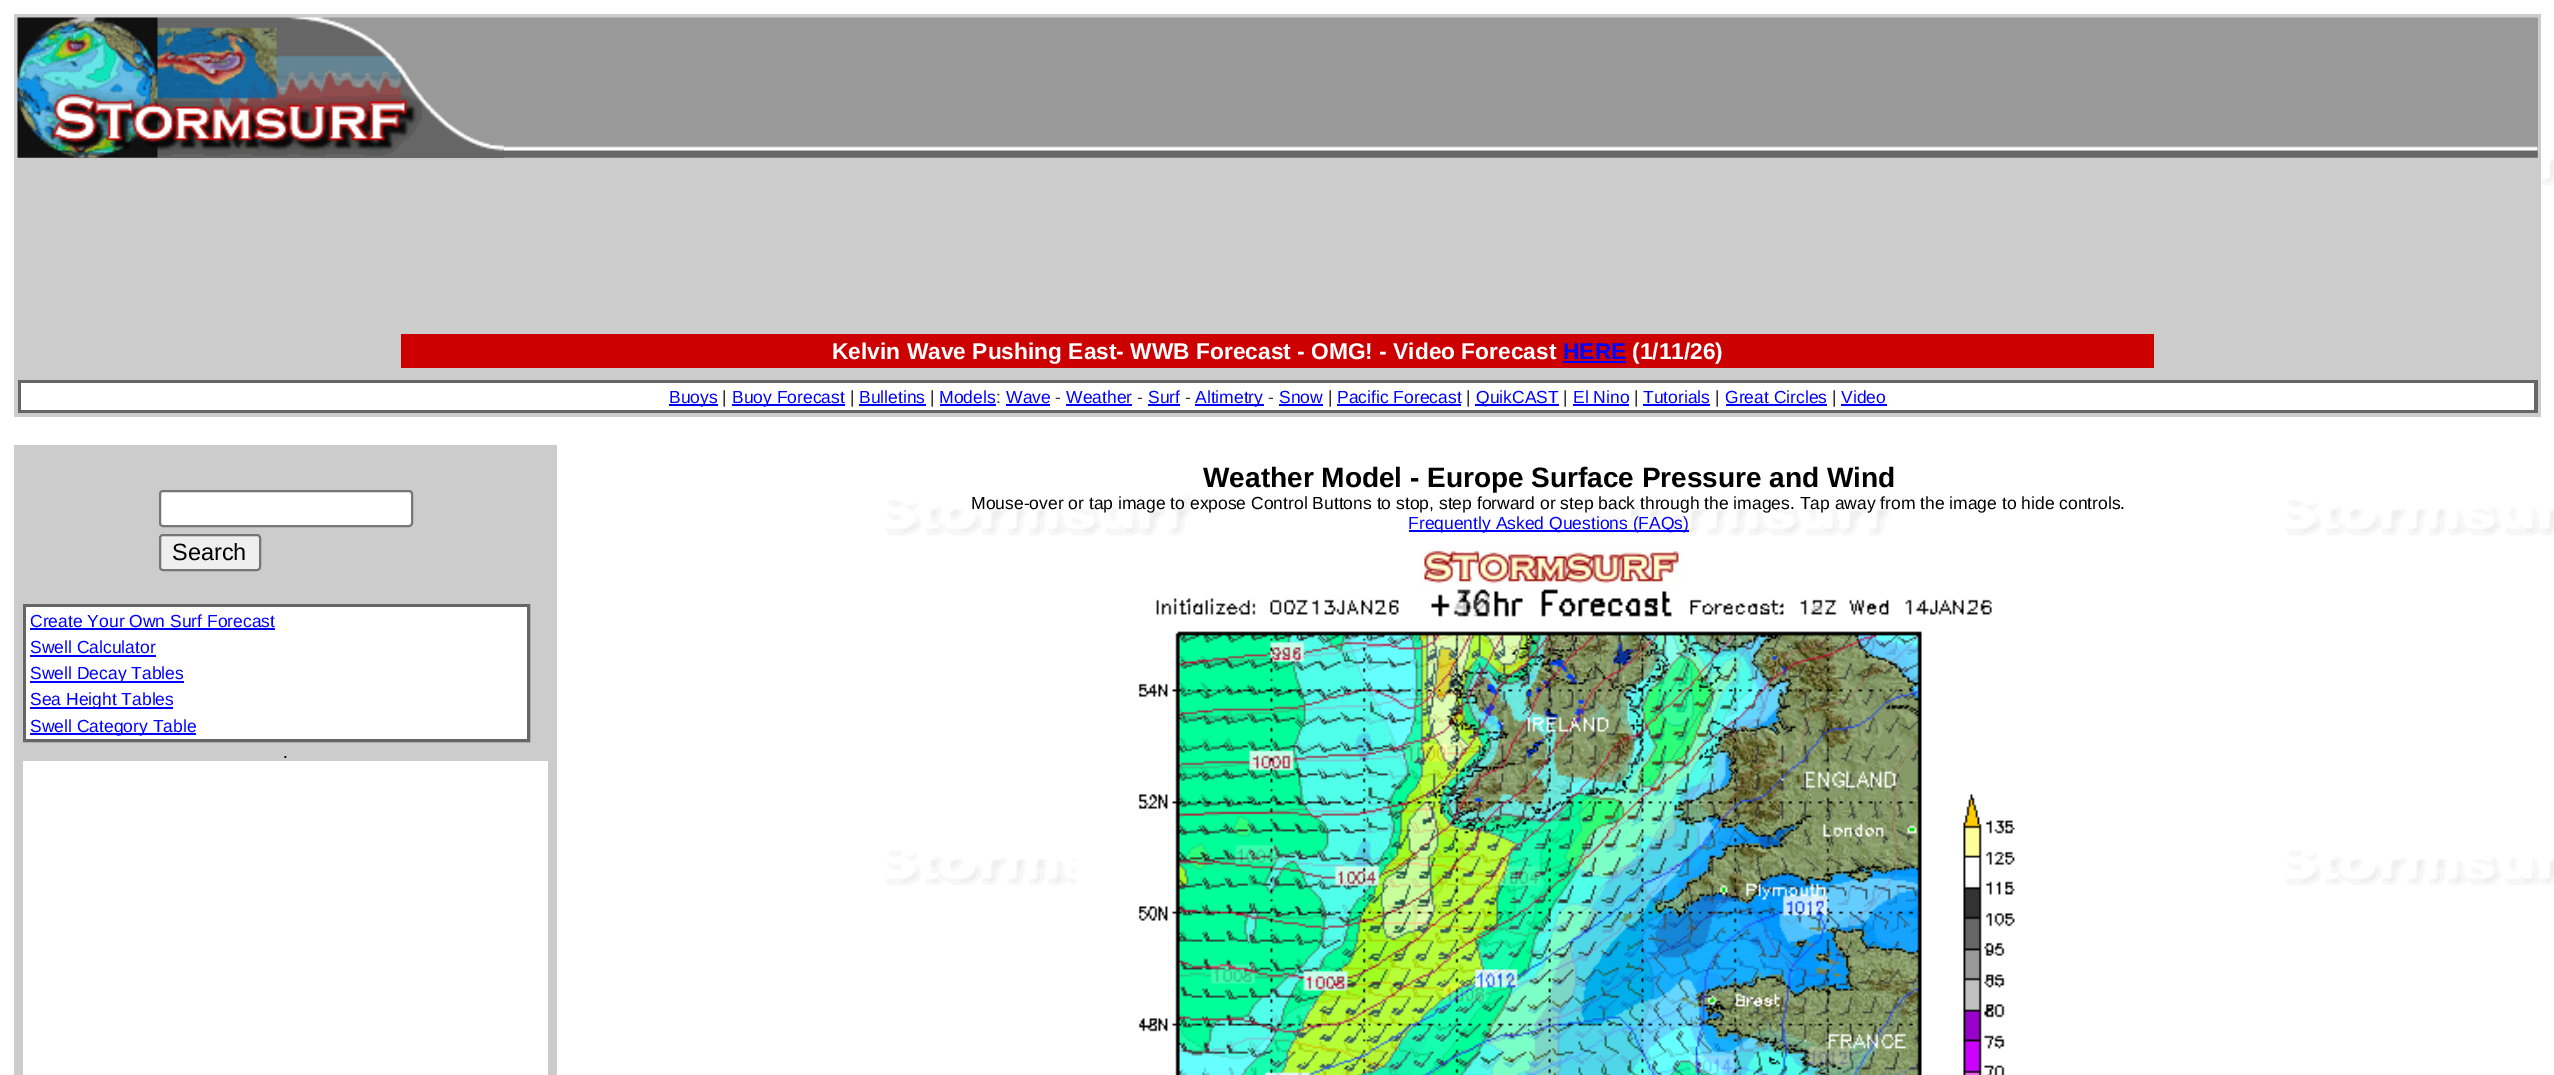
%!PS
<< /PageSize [2554 1075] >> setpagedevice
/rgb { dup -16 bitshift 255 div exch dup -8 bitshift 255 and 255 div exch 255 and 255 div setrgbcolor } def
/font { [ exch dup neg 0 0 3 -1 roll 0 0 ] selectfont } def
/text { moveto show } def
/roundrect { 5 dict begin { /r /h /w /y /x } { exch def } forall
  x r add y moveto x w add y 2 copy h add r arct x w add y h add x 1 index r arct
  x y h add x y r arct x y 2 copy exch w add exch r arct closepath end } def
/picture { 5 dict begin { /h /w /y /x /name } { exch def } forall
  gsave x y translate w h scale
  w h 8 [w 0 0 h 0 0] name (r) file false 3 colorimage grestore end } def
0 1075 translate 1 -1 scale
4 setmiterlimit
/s1 { /LiberationSans-Bold 22.75 font 16#FFFFFF rgb } def
/s2 { /LiberationSans-Bold 22.75 font 16#0000FF rgb } def
/s3 { /LiberationSans-Regular 17.5 font 16#0000FF rgb } def
/s4 { /LiberationSans-Regular 17.5 font 16#333333 rgb } def
/s5 { /LiberationSans-Bold 28 font 16#000000 rgb } def
/s6 { /LiberationSans-Regular 17.5 font 16#000000 rgb } def
/s7 { /LiberationSans-Regular 23.5 font 16#000000 rgb } def
16#FFFFFF rgb
0 0 2554 1075 rectfill
(pic1.raw) 186 144 2368 741 picture
16#CCCCCC rgb
14 14 2527 403 rectfill
16#999999 rgb
504 18 2034 140 rectfill
16#666666 rgb
18 157 486 1 rectfill
(pic2.raw) 17 17 487 141 picture
(pic3.raw) 504 17 2034 141 picture
16#CC0000 rgb
401 334 1753 34 rectfill
s1
(Kelvin Wave Pushing East- WWB Forecast - OMG! - Video Forecast) 832 359 text
s2
(HERE) 1563 359 text
1563 361 63 2 rectfill
s1
(\(1/11/26\)) 1632 359 text
16#666666 rgb
18 380 2520 33 rectfill
16#FFFFFF rgb
21 383 2513 27 rectfill
16#0000FF rgb
669 404 49 2 rectfill
s3
(Buoys) 669 403 text
s4
(|) 722 403 text
16#0000FF rgb
732 404 113 2 rectfill
(Buoy Forecast) 732 403 text
s4
(|) 850 403 text
s3
(Bulletins) 859 403 text
859 404 67 2 rectfill
s4
(|) 930 403 text
s3
(Models) 939 403 text
s4
(:) 996 403 text
16#0000FF rgb
940 404 56 2 rectfill
(Wave) 1006 403 text
1006 404 44 2 rectfill
s4
(-) 1055 403 text
s3
(Weather) 1066 403 text
1066 404 66 2 rectfill
s4
(-) 1137 403 text
s3
(Surf) 1148 403 text
1148 404 32 2 rectfill
s4
(-) 1185 403 text
16#0000FF rgb
1195 404 69 2 rectfill
(Altimetry) 1195 403 text
s4
(-) 1268 403 text
s3
(Snow) 1279 403 text
1279 404 44 2 rectfill
s4
(|) 1328 403 text
s3
(Pacific Forecast) 1337 403 text
1337 404 124 2 rectfill
s4
(|) 1466 403 text
16#0000FF rgb
1475 404 84 2 rectfill
(QuikCAST) 1476 403 text
s4
(|) 1563 403 text
s3
(El Nino) 1573 403 text
1573 404 56 2 rectfill
s4
(|) 1634 403 text
s3
(Tutorials) 1643 403 text
1643 404 67 2 rectfill
s4
(|) 1715 403 text
s3
(Great Circles) 1725 403 text
1726 404 101 2 rectfill
s4
(|) 1832 403 text
s3
(Video) 1841 403 text
1841 404 46 2 rectfill
s5
(Weather Model - Europe Surface Pressure and Wind) 1203 487 text
s6
(Mouse-over or tap image to expose Control Buttons to stop, step forward or step back through the images. Tap away from the image to hide controls.) 971 509 text
16#0000FF rgb
1409 530 280 2 rectfill
(Frequently Asked Questions \(FAQs\)) 1408 529 text
(pic4.raw) 1076 550 939 525 picture
(pic5.raw) 1179 589 740 486 picture
16#CCCCCC rgb
14 445 543 630 rectfill
16#FFFFFF rgb
160 491 252 35 3 roundrect gsave fill grestore
16#767676 rgb
2 setlinewidth
stroke
16#EFEFEF rgb
160 535 100 35 3 roundrect gsave fill grestore
16#767676 rgb
stroke
s7
(Search) 172 560 text
16#666666 rgb
24 605 505 136 rectstroke
26 607 502 132 rectstroke
16#FFFFFF rgb
26 607 501 132 rectfill
s3
(Create Your Own Surf Forecast) 30 627 text
30 628 245 2 rectfill
(Swell Calculator) 30 653 text
30 655 126 2 rectfill
30 681 154 2 rectfill
(Swell Decay Tables) 30 679 text
30 707 143 2 rectfill
(Sea Height Tables) 30 705 text
30 733 166 2 rectfill
(Swell Category Table) 30 732 text
s6
(.) 283 758 text
16#FFFFFF rgb
23 761 525 314 rectfill
showpage
